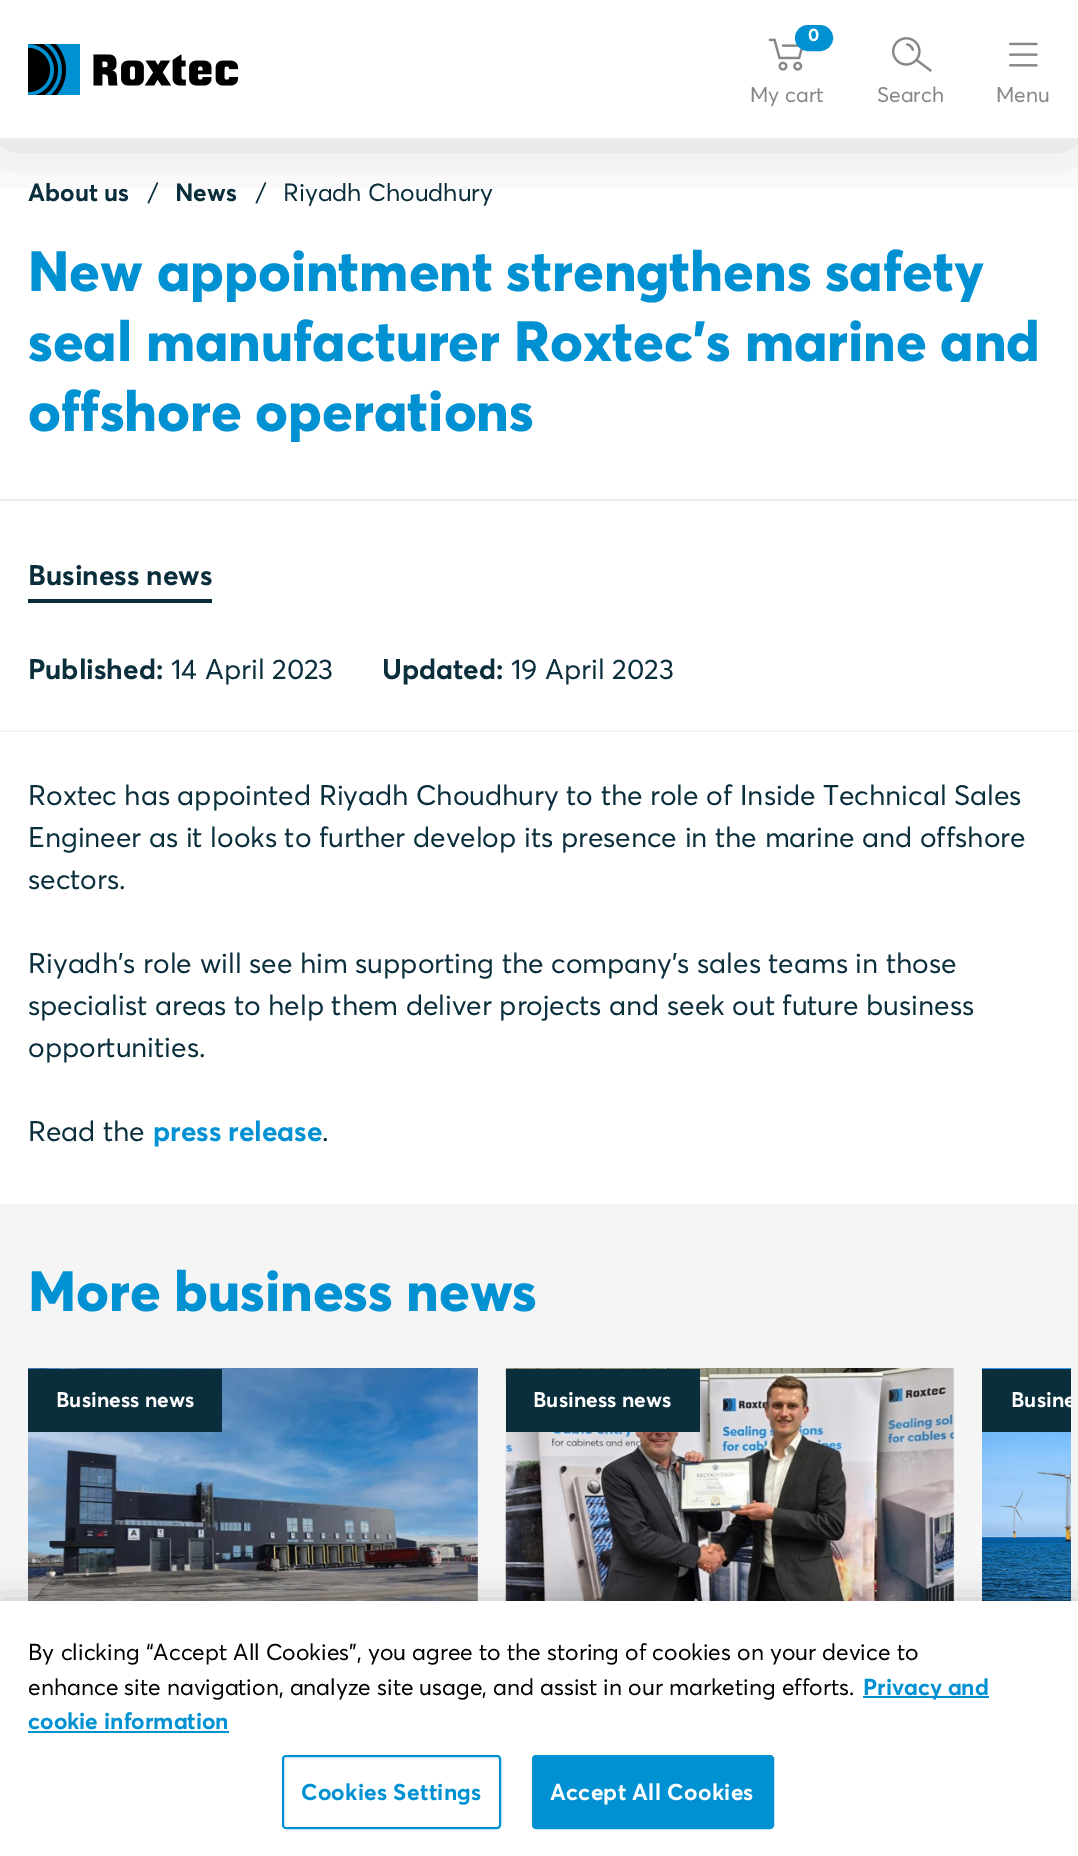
%!PS
<< /PageSize [1078 1856] /PageUsesTransparency true >> setpagedevice
/rgb { dup -16 bitshift 255 div exch dup -8 bitshift 255 and 255 div exch 255 and 255 div setrgbcolor } def
/font { [ exch dup neg 0 0 3 -1 roll 0 0 ] selectfont } def
/text { moveto show } def
/alpha { dup .setfillconstantalpha .setstrokeconstantalpha } def
/roundrect { 5 dict begin { /r /h /w /y /x } { exch def } forall
  x r add y moveto x w add y 2 copy h add r arct x w add y h add x 1 index r arct
  x y h add x y r arct x y 2 copy exch w add exch r arct closepath end } def
/shadow { 12 dict begin { /a /b /q /h /w /y /x } { exch def } forall gsave /was 0 def
  9 -2 -9 { dup b mul 4 div /e exch def 1 sub .425 mul 2.718 exch exp 1 add a .99 .min exch div /now exch def
    1 1 now sub 1 was sub div sub alpha /was now def
    w h .min e 2 mul add 0 gt { x e sub y e sub w e 2 mul add h e 2 mul add
      q e add b .6 mul add w h .min 2 div e add .min 0 .max roundrect fill } if } for grestore end } def
/picture { 5 dict begin { /h /w /y /x /name } { exch def } forall
  gsave x y translate w h scale
  w h 8 [w 0 0 h 0 0] name (r) file false 3 colorimage grestore end } def
0 .pushpdf14devicefilter
0 1856 translate 1 -1 scale
4 setmiterlimit
/s1 { /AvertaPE-Bold 18 font 16#FFFFFF rgb } def
/s2 { /AvertaPE-Regular 21 font 16#878786 rgb } def
/s3 { /AvertaPE-Bold 24.5 font 16#0A2E3C rgb } def
/s4 { /AvertaPE-Regular 24.5 font 16#0A2E3C rgb } def
/s5 { /AvertaPE-ExtraBold 56 font 16#0091D3 rgb } def
/s6 { /AvertaPE-Bold 28 font 16#0A2E3C rgb } def
/s7 { /AvertaPE-Regular 28 font 16#0A2E3C rgb } def
/s8 { /AvertaPE-Bold 28 font 16#0091D3 rgb } def
/s9 { /AvertaPE-Bold 21 font 16#FFFFFF rgb } def
/s10 { /AvertaPE-Regular 22.75 font 16#000000 rgb } def
/s11 { /AvertaPE-Bold 22.75 font 16#0091D3 rgb } def
16#FFFFFF rgb
0 0 1078 1856 rectfill
gsave
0 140 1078 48 rectclip
16#000000 rgb
0 4 1078 140 0 38.5 0.16 shadow
grestore
16#ECECEC rgb
0 138 1078 2 rectfill
(pic1.raw) 28 44 210 51 picture
(pic2.raw) 768 38 35 33 picture
16#0091D3 rgb
796 26 36 24 12 roundrect gsave fill grestore
2 setlinewidth
stroke
s1
(0) 808 41 text
s2
(My cart) 750 102 text
(pic3.raw) 892 37 40 35 picture
(Search) 877 102 text
(pic4.raw) 1009 42 29 25 picture
(Menu) 996 102 text
16#ECECEC rgb
0 499 1078 2 rectfill
s3
(About us) 28 201 text
s4
(/) 148 201 text
s3
(News) 175 201 text
s4
(/) 256 201 text
(Riyadh Choudhury) 283 201 text
s5
(New appointment strengthens safety) 28 291 text
(seal manufacturer Roxtec’s marine and) 28 361 text
(offshore operations) 28 431 text
s6
(Business news) 28 585 text
28 599 184 4 rectfill
(Published:) 28 679 text
s7
(14 April 2023) 171 679 text
s6
(Updated:) 382 679 text
s7
(19 April 2023) 511 679 text
16#F5F5F5 rgb
0 730 1078 2 rectfill
s7
(Roxtec has appointed Riyadh Choudhury to the role of Inside Technical Sales) 28 805 text
(Engineer as it looks to further develop its presence in the marine and offshore) 28 847 text
(sectors.) 28 889 text
(Riyadh’s role will see him supporting the company’s sales teams in those) 28 973 text
(specialist areas to help them deliver projects and seek out future business) 28 1015 text
(opportunities.) 28 1057 text
(Read the) 28 1141 text
s8
(press release) 153 1141 text
s7
(.) 322 1141 text
16#F5F5F5 rgb
0 1204 1078 397 rectfill
s5
(More business news) 28 1311 text
(pic5.raw) 28 1368 450 233 picture
16#0A2E3C rgb
28 1369 194 63 rectfill
s9
(Business news) 56 1407 text
(pic6.raw) 505 1368 450 233 picture
16#0A2E3C rgb
506 1369 194 63 rectfill
s9
(Business news) 533 1407 text
(pic7.raw) 982 1368 89 233 picture
16#0A2E3C rgb
982 1369 89 63 rectfill
s9
(Busine) 1011 1407 text
16#F5F5F5 rgb
1071 1397 4 10 rectfill
16#000000 rgb
0 1601 1078 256 0 16 0.2 shadow
16#FFFFFF rgb
0 1601 1078 255 rectfill
s10
(By clicking “Accept All Cookies”, you agree to the storing of cookies on your device to) 28 1660 text
(enhance site navigation, analyze site usage, and assist in our marketing efforts.) 28 1695 text
16#0091D3 rgb
863 1696 126 2 rectfill
s11
(Privacy and) 863 1695 text
(cookie information) 28 1729 text
28 1731 201 2 rectfill
283 1756 217 72 3 roundrect stroke
301 1800 moveto 0.25 0 (Cookies Settings) ashow
533 1756 240 72 3 roundrect gsave fill grestore
stroke
16#FFFFFF rgb
550 1800 moveto 0.25 0 (Accept All Cookies) ashow
.poppdf14devicefilter showpage
